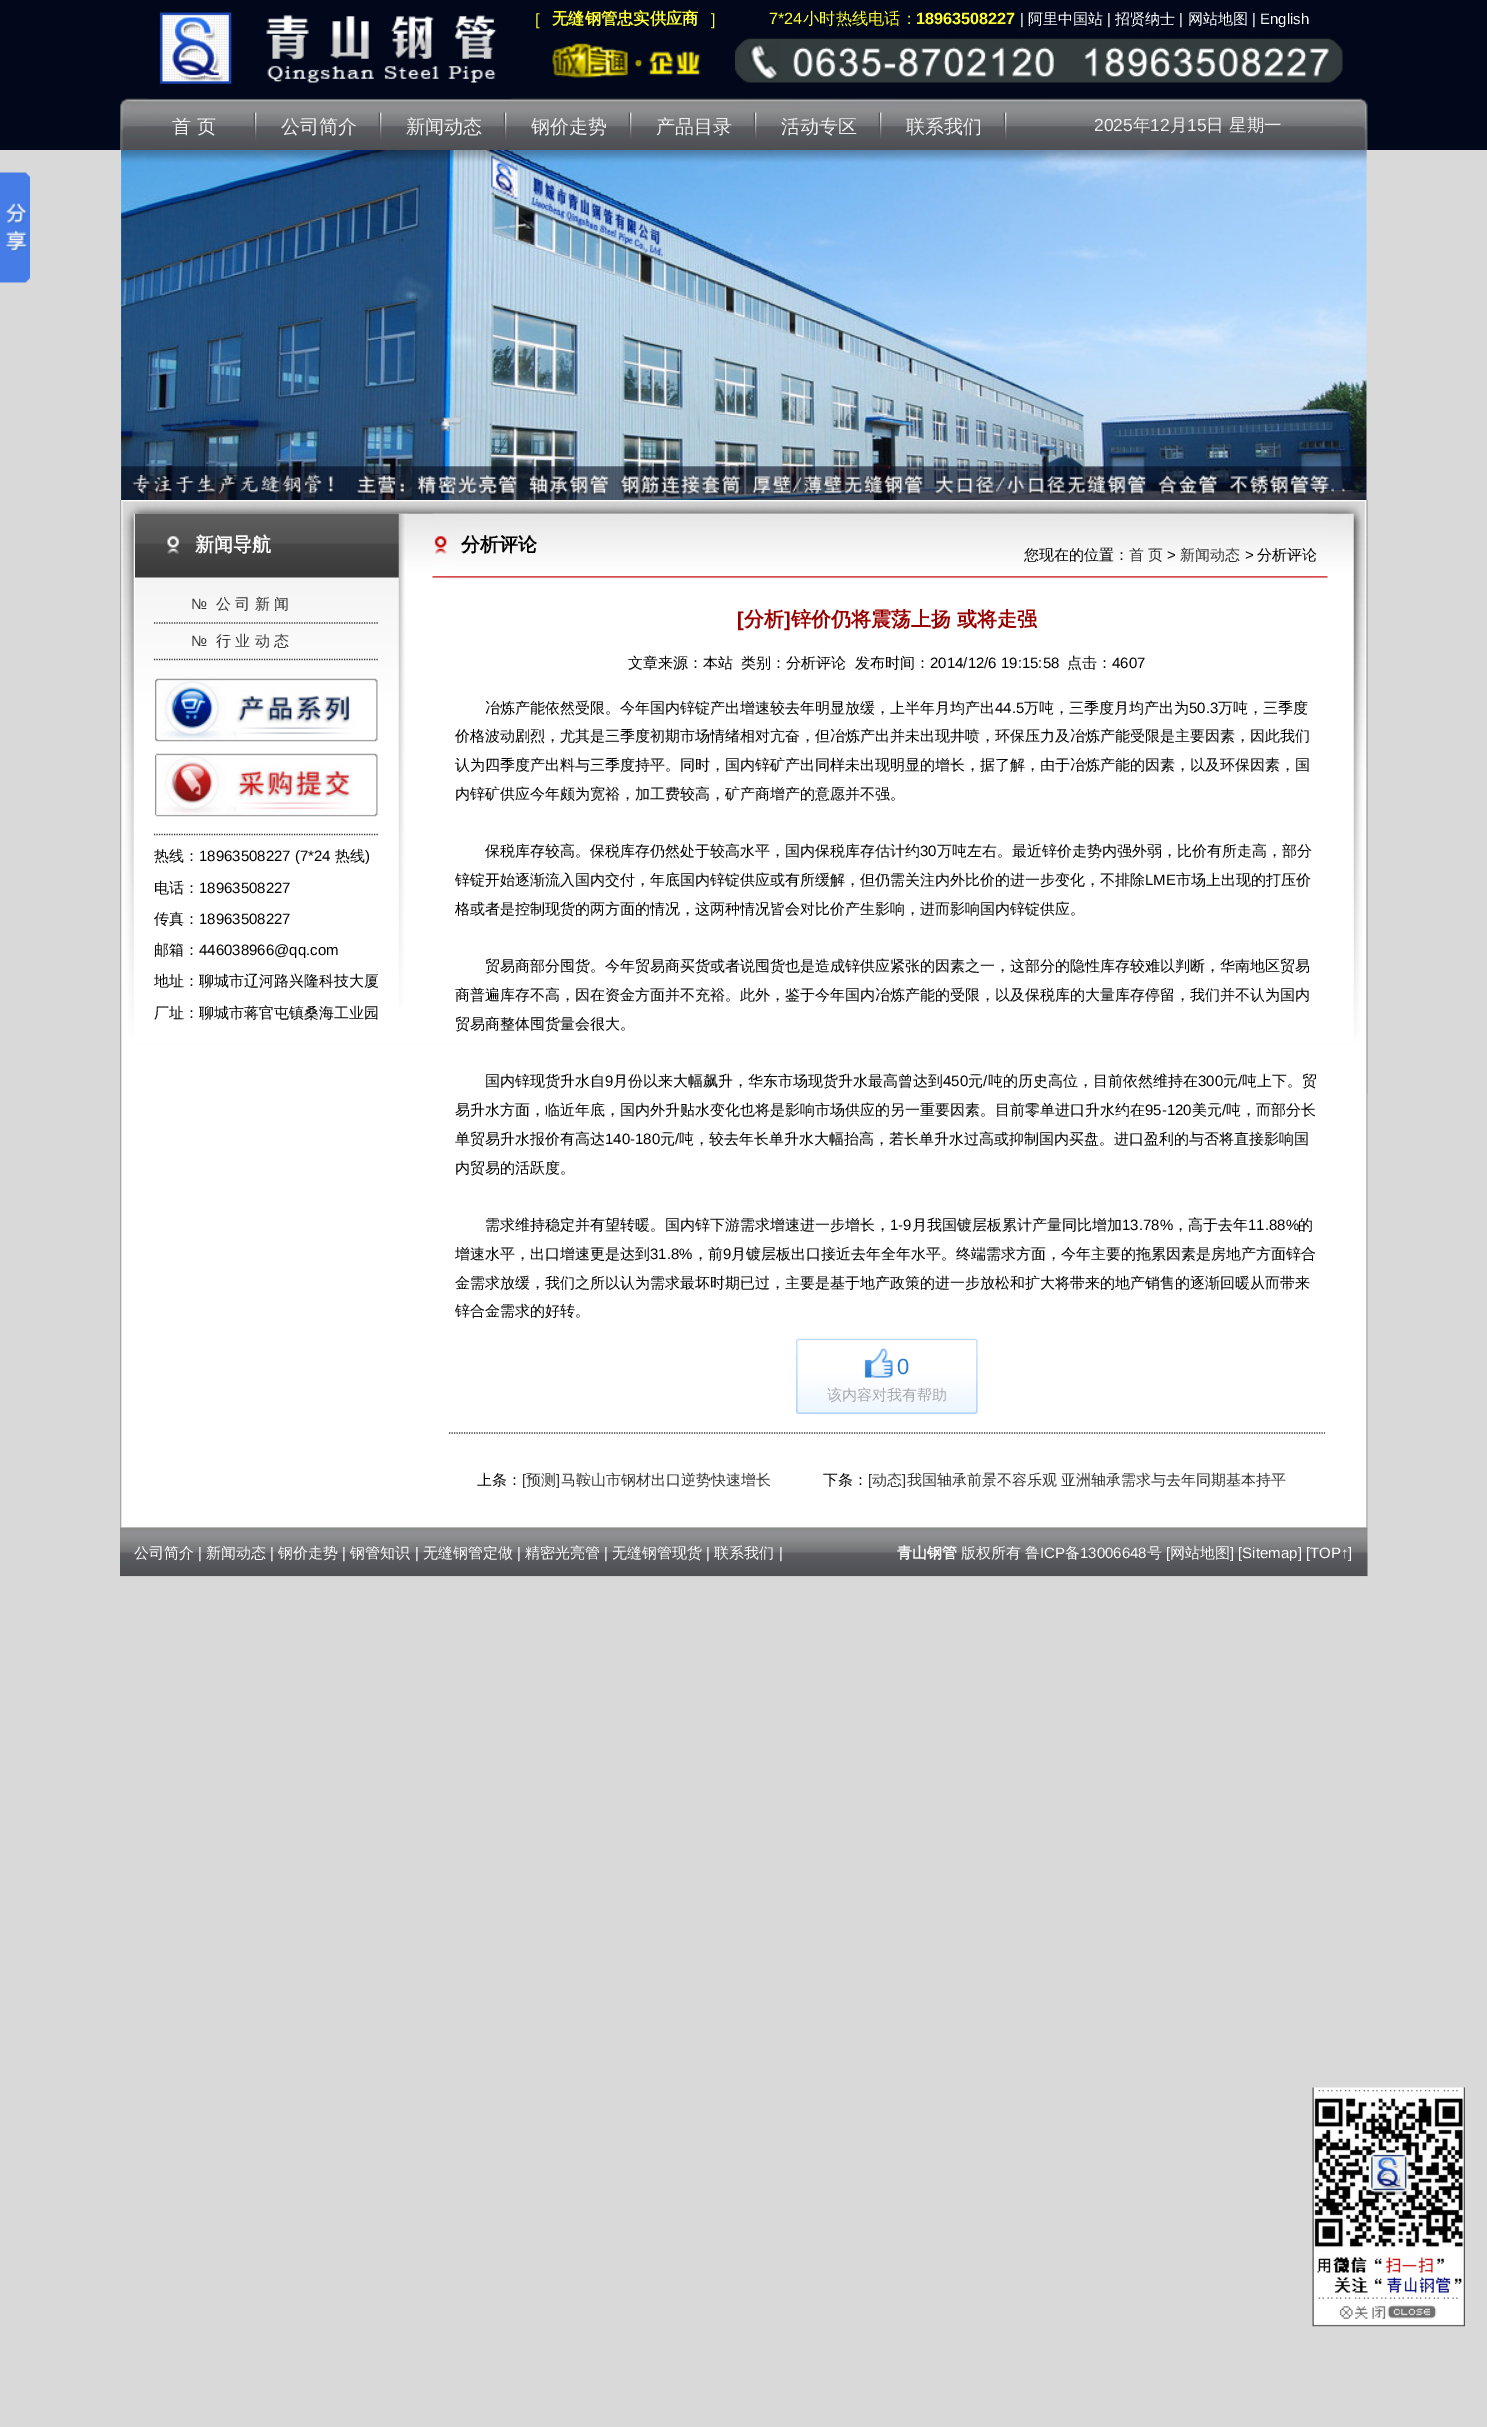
%!PS
<< /PageSize [1487 2427] >> setpagedevice
/rgb { dup -16 bitshift 255 div exch dup -8 bitshift 255 and 255 div exch 255 and 255 div setrgbcolor } def
/font { [ exch dup neg 0 0 3 -1 roll 0 0 ] selectfont } def
/text { moveto show } def
/picture { 5 dict begin { /h /w /y /x /name } { exch def } forall
  gsave x y translate w h scale
  w h 8 [w 0 0 h 0 0] name (r) file false 3 colorimage grestore end } def
0 2427 translate 1 -1 scale
4 setmiterlimit
/s1 { /LiberationSans-Regular 16.25 font 16#FFFF33 rgb } def
/s2 { /WenQuanYiZenHei-Bold 16.25 font 16#FFFF33 rgb } def
/s3 { /WenQuanYiZenHei-Medium 16.25 font 16#FFFF33 rgb } def
/s4 { /LiberationSans-Bold 16.25 font 16#FFFF33 rgb } def
/s5 { /LiberationSans-Regular 15 font 16#FFFFFF rgb } def
/s6 { /WenQuanYiZenHei-Medium 15 font 16#FFFFFF rgb } def
/s7 { /WenQuanYiZenHei-Medium 19 font 16#EFEFEF rgb } def
/s8 { /LiberationSans-Regular 17.5 font 16#EFEFEF rgb } def
/s9 { /WenQuanYiZenHei-Medium 17.5 font 16#EFEFEF rgb } def
/s10 { /WenQuanYiZenHei-Bold 19 font 16#FFFFFF rgb } def
/s11 { /LiberationSans-Regular 15 font 16#333333 rgb } def
/s12 { /WenQuanYiZenHei-Medium 15 font 16#333333 rgb } def
/s13 { /WenQuanYiZenHei-Medium 15 font 16#000000 rgb } def
/s14 { /LiberationSans-Regular 15 font 16#000000 rgb } def
/s15 { /WenQuanYiZenHei-Bold 19 font 16#000000 rgb } def
/s16 { /LiberationSans-Bold 20 font 16#990000 rgb } def
/s17 { /WenQuanYiZenHei-Bold 20 font 16#990000 rgb } def
/s18 { /LiberationSans-Regular 22 font 16#2979D3 rgb } def
/s19 { /WenQuanYiZenHei-Medium 15 font 16#A9A9A9 rgb } def
/s20 { /WenQuanYiZenHei-Bold 15 font 16#FFFFFF rgb } def
16#D9D9D9 rgb
0 0 1487 2427 rectfill
16#01081C rgb
0 0 1487 150 rectfill
(pic4.raw) 120 98 1248 52 picture
(pic1.raw) 147 12 365 87 picture
s1
([) 535 25 text
s2
(无缝钢管忠实供应商) 552 24 text
s1
(]) 711 25 text
(7*24) 769 24 text
s3
(小时热线电话：) 803 24 text
s4
(18963508227) 916 24 text
s5
(|) 1020 24 text
s6
(阿里中国站) 1028 24 text
s5
(|) 1107 24 text
s6
(招贤纳士) 1115 24 text
s5
(|) 1179 24 text
s6
(网站地图) 1188 24 text
s5
(| English) 1252 24 text
(pic2.raw) 552 43 149 35 picture
(pic3.raw) 735 38 608 45 picture
(pic5.raw) 253 112 4 28 picture
s7
(首 页) 172 133 text
(pic5.raw) 378 112 4 28 picture
(公司简介) 281 133 text
(pic6.raw) 503 112 4 28 picture
(新闻动态) 406 133 text
(pic6.raw) 628 112 4 28 picture
(钢价走势) 531 133 text
(pic7.raw) 753 112 4 28 picture
(产品目录) 656 133 text
(pic8.raw) 878 112 4 28 picture
(活动专区) 781 133 text
(pic7.raw) 1003 112 4 28 picture
(联系我们) 906 133 text
s8
(2025) 1094 131 text
s9
(年) 1133 131 text
s8
(12) 1150 131 text
s9
(月) 1170 131 text
s8
(15) 1187 131 text
s9
(日) 1206 131 text
(星期一) 1229 131 text
(pic9.raw) 121 150 1246 350 picture
(pic10.raw) 121 150 1246 350 picture
(pic11.raw) 0 172 30 111 picture
(pic12.raw) 120 500 1248 1028 picture
(pic13.raw) 122 500 1246 595 picture
(pic14.raw) 135 513 273 494 picture
s10
(新闻导航) 195 551 text
16#333333 rgb
1.2 setlinewidth
[1.25 1.25] 0 setdash
154 623 moveto 379 623 lineto stroke
s11
(№) 191 609 text
s12
(公 司 新 闻) 216 609 text
154 659.5 moveto 379 659.5 lineto stroke
s11
(№) 191 646 text
s12
(行 业 动 态) 216 646 text
(pic15.raw) 155 678 223 64 picture
(pic16.raw) 155 753 223 64 picture
154 834.5 moveto 379 834.5 lineto stroke
s13
(热线：) 154 861 text
s14
(18963508227 \(7*24) 199 861 text
s13
(热线) 335 861 text
s14
(\)) 365 861 text
s13
(电话：) 154 893 text
s14
(18963508227) 199 893 text
s13
(传真：) 154 924 text
s14
(18963508227) 199 924 text
s13
(邮箱：) 154 955 text
s14
(446038966@qq.com) 199 955 text
s13
(地址：聊城市辽河路兴隆科技大厦) 154 986 text
(厂址：聊城市蒋官屯镇桑海工业园) 154 1018 text
(pic17.raw) 432 513 896 65 picture
s15
(分析评论) 461 551 text
s13
(您现在的位置：) 1024 560 text
s12
(首 页) 1129 560 text
s14
(>) 1167 560 text
s12
(新闻动态) 1180 560 text
s14
(>) 1245 560 text
s13
(分析评论) 1257 560 text
s16
([) 737 626 text
s17
(分析) 744 626 text
s16
(]) 784 626 text
s17
(锌价仍将震荡上扬 或将走强) 791 626 text
s13
(文章来源：本站) 628 668 text
(类别：分析评论) 741 668 text
(发布时间：) 855 668 text
s14
(2014/12/6 19:15:58) 930 668 text
s13
(点击：) 1067 668 text
s14
(4607) 1112 668 text
s13
(冶炼产能依然受限。今年国内锌锭产出增速较去年明显放缓，上半年月均产出) 485 713 text
s14
(44.5) 995 713 text
s13
(万吨，三季度月均产出为) 1024 713 text
s14
(50.3) 1189 713 text
s13
(万吨，三季度) 1218 713 text
(价格波动剧烈，尤其是三季度初期市场情绪相对亢奋，但冶炼产出并未出现井喷，环保压力及冶炼产能受限是主要因素，因此我们) 455 741 text
(认为四季度产出料与三季度持平。同时，国内锌矿产出同样未出现明显的增长，据了解，由于冶炼产能的因素，以及环保因素，国) 455 770 text
(内锌矿供应今年颇为宽裕，加工费较高，矿产商增产的意愿并不强。) 455 799 text
(保税库存较高。保税库存仍然处于较高水平，国内保税库存估计约) 485 856 text
s14
(30) 920 856 text
s13
(万吨左右。最近锌价走势内强外弱，比价有所走高，部分) 937 856 text
(锌锭开始逐渐流入国内交付，年底国内锌锭供应或有所缓解，但仍需关注内外比价的进一步变化，不排除) 455 885 text
s14
(LME) 1145 885 text
s13
(市场上出现的打压价) 1176 885 text
(格或者是控制现货的两方面的情况，这两种情况皆会对比价产生影响，进而影响国内锌锭供应。) 455 914 text
(贸易商部分囤货。今年贸易商买货或者说囤货也是造成锌供应紧张的因素之一，这部分的隐性库存较难以判断，华南地区贸易) 485 971 text
(商普遍库存不高，因在资金方面并不充裕。此外，鉴于今年国内冶炼产能的受限，以及保税库的大量库存停留，我们并不认为国内) 455 1000 text
(贸易商整体囤货量会很大。) 455 1029 text
(国内锌现货升水自) 485 1086 text
s14
(9) 605 1086 text
s13
(月份以来大幅飙升，华东市场现货升水最高曾达到) 613 1086 text
s14
(450) 943 1086 text
s13
(元) 968 1086 text
s14
(/) 983 1086 text
s13
(吨的历史高位，目前依然维持在) 988 1086 text
s14
(300) 1198 1086 text
s13
(元) 1223 1086 text
s14
(/) 1238 1086 text
s13
(吨上下。贸) 1242 1086 text
(易升水方面，临近年底，国内外升贴水变化也将是影响市场供应的另一重要因素。目前零单进口升水约在) 455 1115 text
s14
(95-120) 1145 1115 text
s13
(美元) 1192 1115 text
s14
(/) 1222 1115 text
s13
(吨，而部分长) 1226 1115 text
(单贸易升水报价有高达) 455 1144 text
s14
(140-180) 605 1144 text
s13
(元) 660 1144 text
s14
(/) 675 1144 text
s13
(吨，较去年长单升水大幅抬高，若长单升水过高或抑制国内买盘。进口盈利的与否将直接影响国) 679 1144 text
(内贸易的活跃度。) 455 1173 text
(需求维持稳定并有望转暖。国内锌下游需求增速进一步增长，) 485 1230 text
s14
(1-9) 890 1230 text
s13
(月我国镀层板累计产量同比增加) 912 1230 text
s14
(13.78%) 1122 1230 text
s13
(，高于去年) 1173 1230 text
s14
(11.88%) 1248 1230 text
s13
(的) 1298 1230 text
(增速水平，出口增速更是达到) 455 1259 text
s14
(31.8%) 650 1259 text
s13
(，前) 693 1259 text
s14
(9) 723 1259 text
s13
(月镀层板出口接近去年全年水平。终端需求方面，今年主要的拖累因素是房地产方面锌合) 731 1259 text
(金需求放缓，我们之所以认为需求最坏时期已过，主要是基于地产政策的进一步放松和扩大将带来的地产销售的逐渐回暖从而带来) 455 1288 text
(锌合金需求的好转。) 455 1316 text
(pic18.raw) 796 1338 182 76 picture
(pic19.raw) 864 1348 29 30 picture
s18
(0) 897 1374 text
s19
(该内容对我有帮助) 827 1400 text
16#333333 rgb
449 1433 moveto 1325 1433 lineto stroke
s13
(上条：) 477 1485 text
s11
([) 522 1485 text
s12
(预测) 526 1485 text
s11
(]) 556 1485 text
s12
(马鞍山市钢材出口逆势快速增长) 561 1485 text
s13
(下条：) 823 1485 text
s11
([) 868 1485 text
s12
(动态) 872 1485 text
s11
(]) 902 1485 text
s12
(我国轴承前景不容乐观 亚洲轴承需求与去年同期基本持平) 907 1485 text
(pic20.raw) 120 1527 1248 50 picture
s6
(公司简介) 134 1558 text
s5
(|) 198 1558 text
s6
(新闻动态) 206 1558 text
s5
(|) 270 1558 text
s6
(钢价走势) 278 1558 text
s5
(|) 342 1558 text
s6
(钢管知识) 350 1558 text
s5
(|) 415 1558 text
s6
(无缝钢管定做) 423 1558 text
s5
(|) 517 1558 text
s6
(精密光亮管) 525 1558 text
s5
(|) 604 1558 text
s6
(无缝钢管现货) 612 1558 text
s5
(|) 706 1558 text
s6
(联系我们) 714 1558 text
s5
(|) 779 1558 text
s20
(青山钢管) 897 1558 text
s6
(版权所有) 961 1558 text
(鲁) 1025 1558 text
s5
(ICP) 1040 1558 text
s6
(备) 1065 1558 text
s5
(13006648) 1080 1558 text
s6
(号) 1147 1558 text
s5
([) 1166 1558 text
s6
(网站地图) 1170 1558 text
s5
(] [Sitemap] [TOP↑]) 1230 1558 text
(pic21.raw) 1312 2087 153 168 picture
(pic22.raw) 1312 2255 153 45 picture
(pic23.raw) 1312 2300 153 27 picture
showpage
